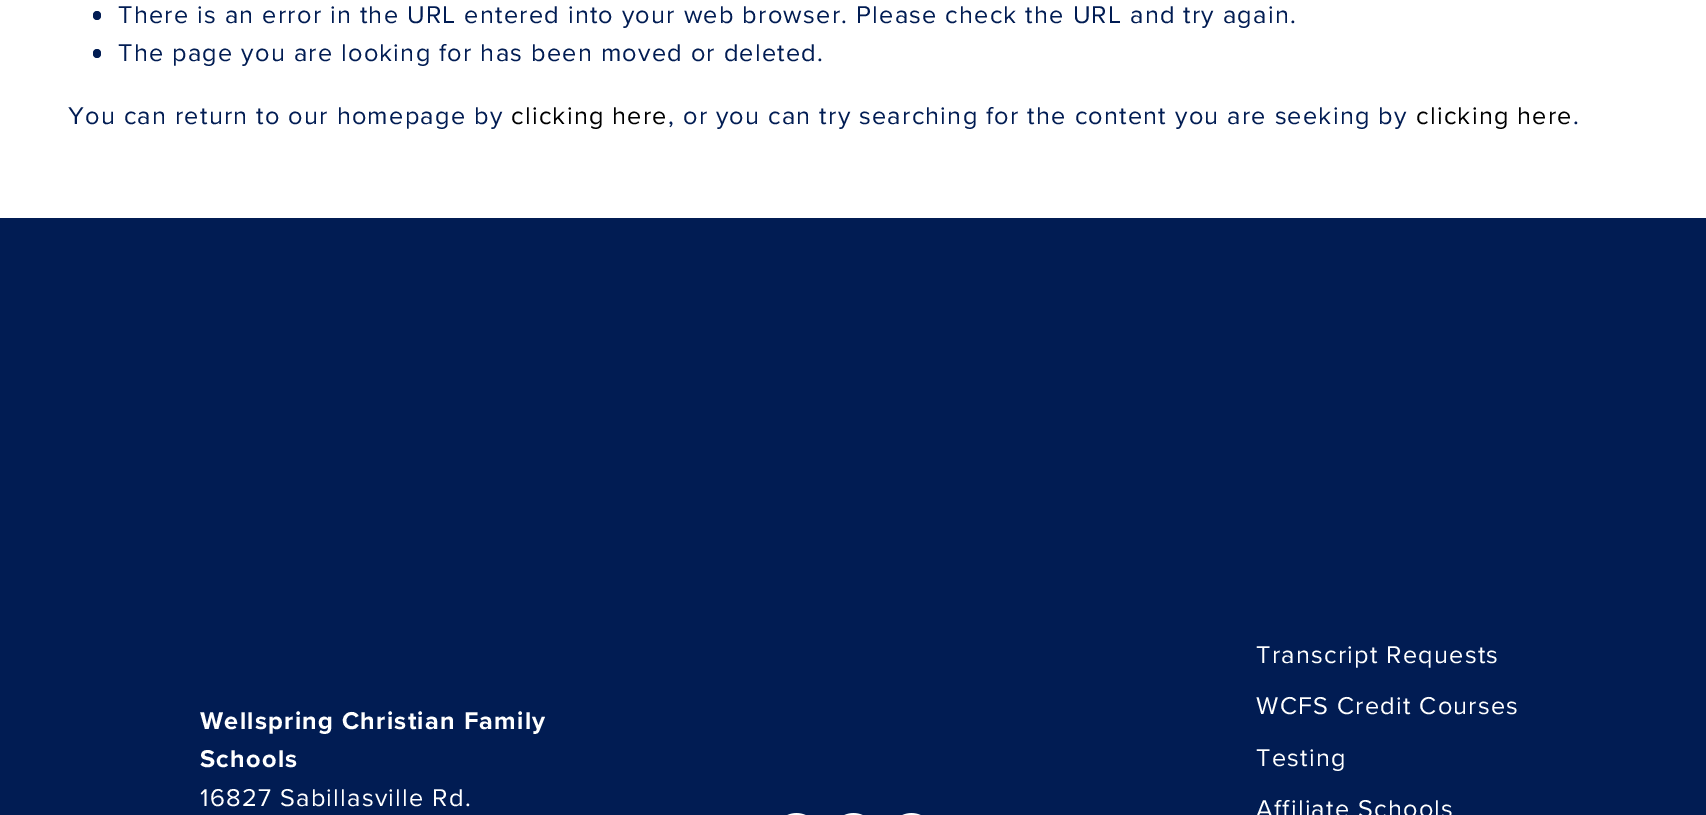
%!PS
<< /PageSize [1706 815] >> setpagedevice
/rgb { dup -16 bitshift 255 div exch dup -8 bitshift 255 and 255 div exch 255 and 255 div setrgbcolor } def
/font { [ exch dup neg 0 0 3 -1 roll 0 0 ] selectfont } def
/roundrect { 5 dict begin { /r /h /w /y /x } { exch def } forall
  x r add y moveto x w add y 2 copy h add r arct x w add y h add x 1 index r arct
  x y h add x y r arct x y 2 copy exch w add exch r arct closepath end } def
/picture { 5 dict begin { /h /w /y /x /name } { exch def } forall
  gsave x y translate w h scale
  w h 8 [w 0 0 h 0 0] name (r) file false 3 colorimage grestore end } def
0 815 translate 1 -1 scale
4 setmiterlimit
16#FFFFFF rgb
0 0 1706 815 rectfill
16#011C53 rgb
93 11 8 9 4 roundrect fill
/ProximaNova-Regular 25.25 font
118 23 moveto 1.25 0 (There is an error in the URL entered into your web browser. Please check the URL and try again.) ashow
93 49 8 9 4 roundrect fill
118 61 moveto 1.25 0 (The page you are looking for has been moved or deleted.) ashow
68 124 moveto 1.25 0 (You can return to our homepage by) ashow
16#000000 rgb
511 124 moveto 1.25 0 (clicking here) ashow
16#011C53 rgb
668 124 moveto 1.25 0 (, or you can try searching for the content you are seeking by) ashow
16#000000 rgb
1416 124 moveto 1.25 0 (clicking here) ashow
16#011C53 rgb
1573 124 moveto 1.25 0 (.) ashow
0 218 1706 597 rectfill
16#FFFFFF rgb
1256 663 moveto 1.25 0 (Transcript Requests) ashow
1256 714 moveto 1.25 0 (WCFS Credit Courses) ashow
/ProximaNova-Bold 25.25 font
200 729 moveto 1.25 0 (Wellspring Christian Family) ashow
200 767 moveto 1.25 0 (Schools) ashow
/ProximaNova-Regular 25.25 font
200 806 moveto 1.25 0 (16827 Sabillasville Rd.) ashow
1256 766 moveto 1.25 0 (Testing) ashow
(pic1.raw) 787 813 19 2 picture
(pic1.raw) 844 813 19 2 picture
(pic1.raw) 902 813 19 2 picture
1256 817 moveto 1.25 0 (Affiliate Schools) ashow
showpage
